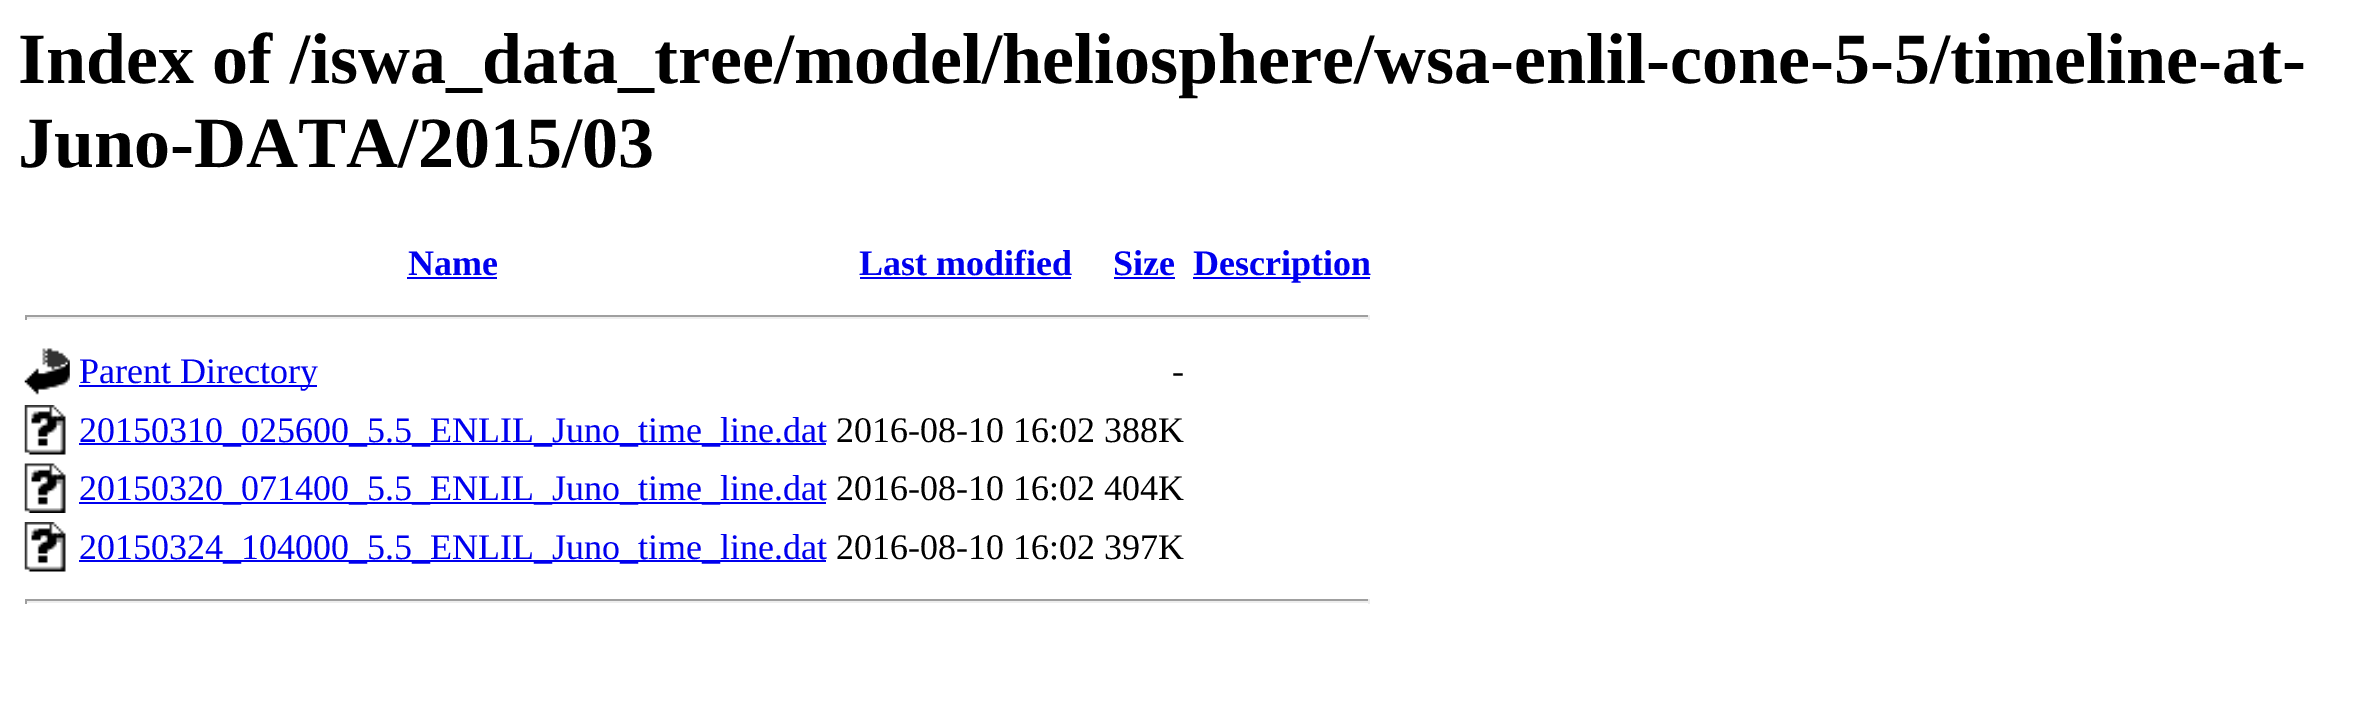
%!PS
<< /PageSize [2363 725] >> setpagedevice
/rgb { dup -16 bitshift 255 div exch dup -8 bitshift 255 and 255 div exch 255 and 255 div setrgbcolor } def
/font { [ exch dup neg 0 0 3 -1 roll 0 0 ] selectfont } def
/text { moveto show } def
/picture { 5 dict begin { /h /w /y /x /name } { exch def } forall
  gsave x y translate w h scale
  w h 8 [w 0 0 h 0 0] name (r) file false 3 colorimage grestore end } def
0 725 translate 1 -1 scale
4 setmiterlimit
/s1 { /LiberationSerif-Bold 72 font 16#000000 rgb } def
/s2 { /LiberationSerif-Bold 36 font 16#0000EE rgb } def
/s3 { /LiberationSerif-Regular 36 font 16#0000EE rgb } def
/s4 { /LiberationSerif-Regular 36 font 16#000000 rgb } def
16#FFFFFF rgb
0 0 2363 725 rectfill
s1
(Index of /iswa_data_tree/model/heliosphere/wsa-enlil-cone-5-5/timeline-at-) 18 83 text
(Juno-DATA/2015/03) 18 167 text
s2
(Name) 408 275 text
407 277 90 2 rectfill
(Last modified) 859 275 text
860 277 211 2 rectfill
(Size) 1113 275 text
1114 277 61 2 rectfill
1193 277 177 2 rectfill
(Description) 1193 275 text
16#9F9F9F rgb
25 315 1345 2 rectfill
16#EEEEEE rgb
1368 315 2 5 rectfill
25 317 1345 2 rectfill
16#9F9F9F rgb
25 315 2 5 rectfill
(pic1.raw) 24 348 46 47 picture
16#0000EE rgb
79 385 238 2 rectfill
s3
(Parent Directory) 79 383 text
s4
(-) 1172 383 text
(pic2.raw) 24 405 42 50 picture
16#0000EE rgb
79 443 747 2 rectfill
(20150310_025600_5.5_ENLIL_Juno_time_line.dat) 79 442 text
s4
(2016-08-10 16:02 388K) 836 442 text
(pic3.raw) 24 463 42 50 picture
16#0000EE rgb
79 502 747 2 rectfill
(20150320_071400_5.5_ENLIL_Juno_time_line.dat) 79 500 text
s4
(2016-08-10 16:02 404K) 836 500 text
(pic2.raw) 24 522 42 50 picture
16#0000EE rgb
79 560 747 2 rectfill
(20150324_104000_5.5_ENLIL_Juno_time_line.dat) 79 559 text
s4
(2016-08-10 16:02 397K) 836 559 text
16#9F9F9F rgb
25 599 1345 2 rectfill
16#EEEEEE rgb
1368 599 2 5 rectfill
25 601 1345 2 rectfill
16#9F9F9F rgb
25 599 2 5 rectfill
showpage
